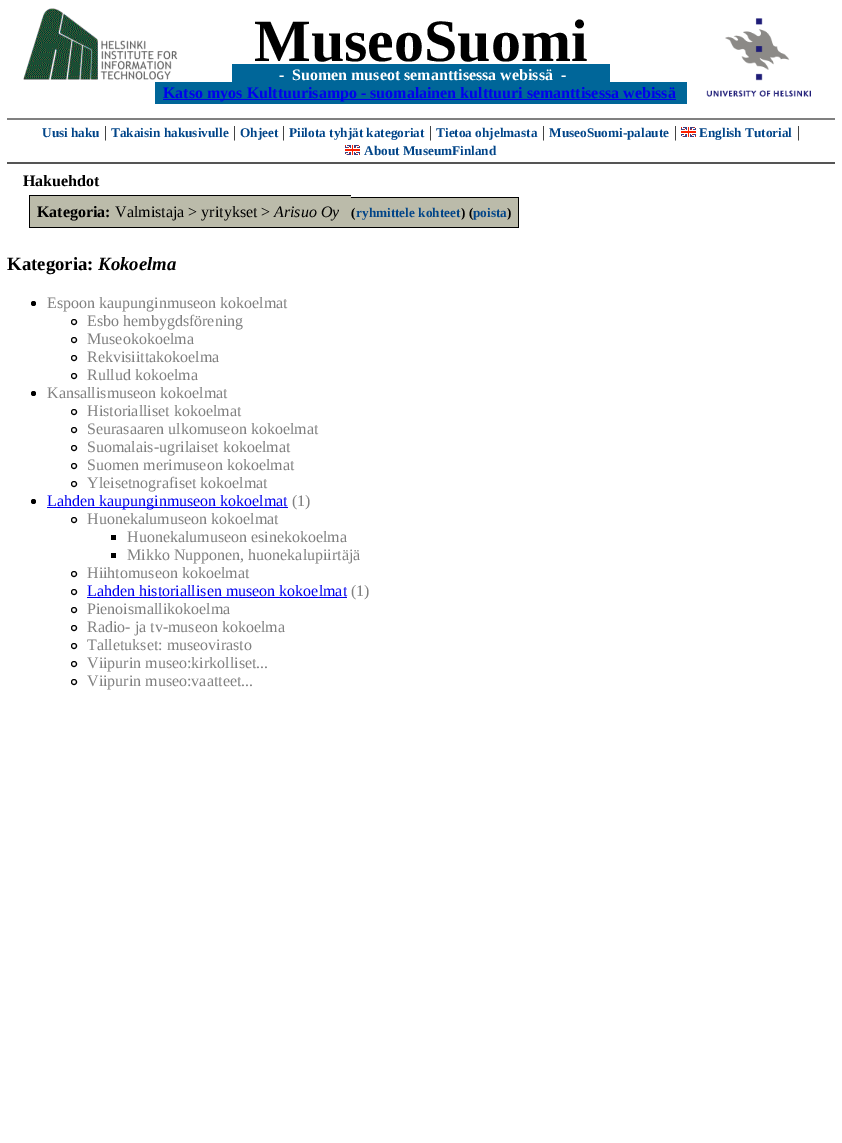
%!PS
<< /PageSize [842 1143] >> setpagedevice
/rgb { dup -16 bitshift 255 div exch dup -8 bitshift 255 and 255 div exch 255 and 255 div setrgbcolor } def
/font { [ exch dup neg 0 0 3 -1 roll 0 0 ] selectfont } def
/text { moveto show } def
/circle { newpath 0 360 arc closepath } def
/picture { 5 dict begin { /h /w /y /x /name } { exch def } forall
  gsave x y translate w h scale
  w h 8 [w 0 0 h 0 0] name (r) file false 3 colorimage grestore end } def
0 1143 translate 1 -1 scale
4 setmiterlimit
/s1 { /LiberationSerif-Bold 60 font 16#000000 rgb } def
/s2 { /LiberationSerif-Bold 16 font 16#FFFFFF rgb } def
/s3 { /LiberationSerif-Bold 16 font 16#0000EE rgb } def
/s4 { /LiberationSerif-Bold 13.25 font 16#004488 rgb } def
/s5 { /LiberationSerif-Regular 16 font 16#000000 rgb } def
/s6 { /LiberationSerif-Bold 16 font 16#000000 rgb } def
/s7 { /LiberationSerif-Italic 16 font 16#000000 rgb } def
/s8 { /LiberationSerif-Bold 13.25 font 16#000000 rgb } def
/s9 { /LiberationSerif-Bold 18.75 font 16#000000 rgb } def
/s10 { /LiberationSerif-BoldItalic 18.75 font 16#000000 rgb } def
/s11 { /LiberationSerif-Regular 16 font 16#808080 rgb } def
/s12 { /LiberationSerif-Regular 16 font 16#0000EE rgb } def
16#FFFFFF rgb
0 0 842 1143 rectfill
(pic1.raw) 23 8 155 72 picture
s1
(MuseoSuomi) 254 61 text
(pic2.raw) 706 18 105 79 picture
16#006699 rgb
232 64 378 18 rectfill
s2
(-) 279 80 text
(Suomen museot semanttisessa webissä) 292 80 text
(-) 561 80 text
16#006699 rgb
155 82 532 22 rectfill
16#0000EE rgb
163 99 513 1 rectfill
(Katso myos Kulttuurisampo - suomalainen kulttuuri semanttisessa webissä) 163 98 text
16#808080 rgb
7 118 828 2 rectfill
16#555555 rgb
7 162 828 2 rectfill
s4
(Uusi haku) 42 137 text
s5
(|) 104 137 text
s4
(Takaisin hakusivulle) 111 137 text
s5
(|) 233 137 text
s4
(Ohjeet) 240 137 text
s5
(|) 282 137 text
s4
(Piilota tyhjät kategoriat) 289 137 text
s5
(|) 429 137 text
s4
(Tietoa ohjelmasta) 436 137 text
s5
(|) 542 137 text
s4
(MuseoSuomi-palaute) 549 137 text
s5
(|) 674 137 text
(pic3.raw) 681 127 15 10 picture
s4
(English Tutorial) 699 137 text
s5
(|) 797 137 text
(pic3.raw) 345 145 15 10 picture
s4
(About MuseumFinland) 364 155 text
s6
(Hakuehdot) 23 186 text
16#BBBBAA rgb
30 196 321 31 rectfill
s6
(Kategoria:) 37 217 text
29 195 322 1 rectfill
29 227 322 1 rectfill
29 195 1 33 rectfill
s5
(Valmistaja > yritykset >) 115 217 text
s7
(Arisuo Oy) 274 217 text
16#BBBBAA rgb
351 197 5 31 rectfill
s8
(\() 351 217 text
351 197 110 1 rectfill
351 227 110 1 rectfill
16#BBBBAA rgb
356 198 105 29 rectfill
s4
(ryhmittele kohteet) 356 217 text
16#BBBBAA rgb
461 197 12 31 rectfill
16#000000 rgb
461 197 58 1 rectfill
461 227 46 1 rectfill
(\) \() 461 217 text
16#BBBBAA rgb
473 198 45 29 rectfill
s4
(poista) 473 217 text
16#000000 rgb
518 197 1 31 rectfill
507 227 12 1 rectfill
(\)) 507 217 text
s9
(Kategoria:) 7 270 text
s10
(Kokoelma) 98 270 text
33.5 303.5 2.5 circle fill
s11
(Espoon kaupunginmuseon kokoelmat) 47 308 text
16#000000 rgb
74 322 2.5 circle stroke
s11
(Esbo hembygdsförening) 87 326 text
16#000000 rgb
74 340 2.5 circle stroke
s11
(Museokokoelma) 87 344 text
16#000000 rgb
74 358 2.5 circle stroke
s11
(Rekvisiittakokoelma) 87 362 text
16#000000 rgb
74 376 2.5 circle stroke
s11
(Rullud kokoelma) 87 380 text
16#000000 rgb
33.5 393.5 2.5 circle fill
s11
(Kansallismuseon kokoelmat) 47 398 text
16#000000 rgb
74 412 2.5 circle stroke
s11
(Historialliset kokoelmat) 87 416 text
16#000000 rgb
74 430 2.5 circle stroke
s11
(Seurasaaren ulkomuseon kokoelmat) 87 434 text
16#000000 rgb
74 448 2.5 circle stroke
s11
(Suomalais-ugrilaiset kokoelmat) 87 452 text
16#000000 rgb
74 466 2.5 circle stroke
s11
(Suomen merimuseon kokoelmat) 87 470 text
16#000000 rgb
74 484 2.5 circle stroke
s11
(Yleisetnografiset kokoelmat) 87 488 text
16#000000 rgb
33.5 501.5 2.5 circle fill
16#0000EE rgb
47 507 241 1 rectfill
(Lahden kaupunginmuseon kokoelmat) 47 506 text
s11
(\(1\)) 292 506 text
16#000000 rgb
74 520 2.5 circle stroke
s11
(Huonekalumuseon kokoelmat) 87 524 text
16#000000 rgb
111 535 5 5 rectfill
s11
(Huonekalumuseon esinekokoelma) 127 542 text
16#000000 rgb
111 553 5 5 rectfill
s11
(Mikko Nupponen, huonekalupiirtäjä) 127 560 text
16#000000 rgb
74 574 2.5 circle stroke
s11
(Hiihtomuseon kokoelmat) 87 578 text
16#000000 rgb
74 592 2.5 circle stroke
s12
(Lahden historiallisen museon kokoelmat) 87 596 text
87 597 260 1 rectfill
s11
(\(1\)) 351 596 text
16#000000 rgb
74 610 2.5 circle stroke
s11
(Pienoismallikokoelma) 87 614 text
16#000000 rgb
74 628 2.5 circle stroke
s11
(Radio- ja tv-museon kokoelma) 87 632 text
16#000000 rgb
74 646 2.5 circle stroke
s11
(Talletukset: museovirasto) 87 650 text
16#000000 rgb
74 664 2.5 circle stroke
s11
(Viipurin museo:kirkolliset...) 87 668 text
16#000000 rgb
74 682 2.5 circle stroke
s11
(Viipurin museo:vaatteet...) 87 686 text
showpage
